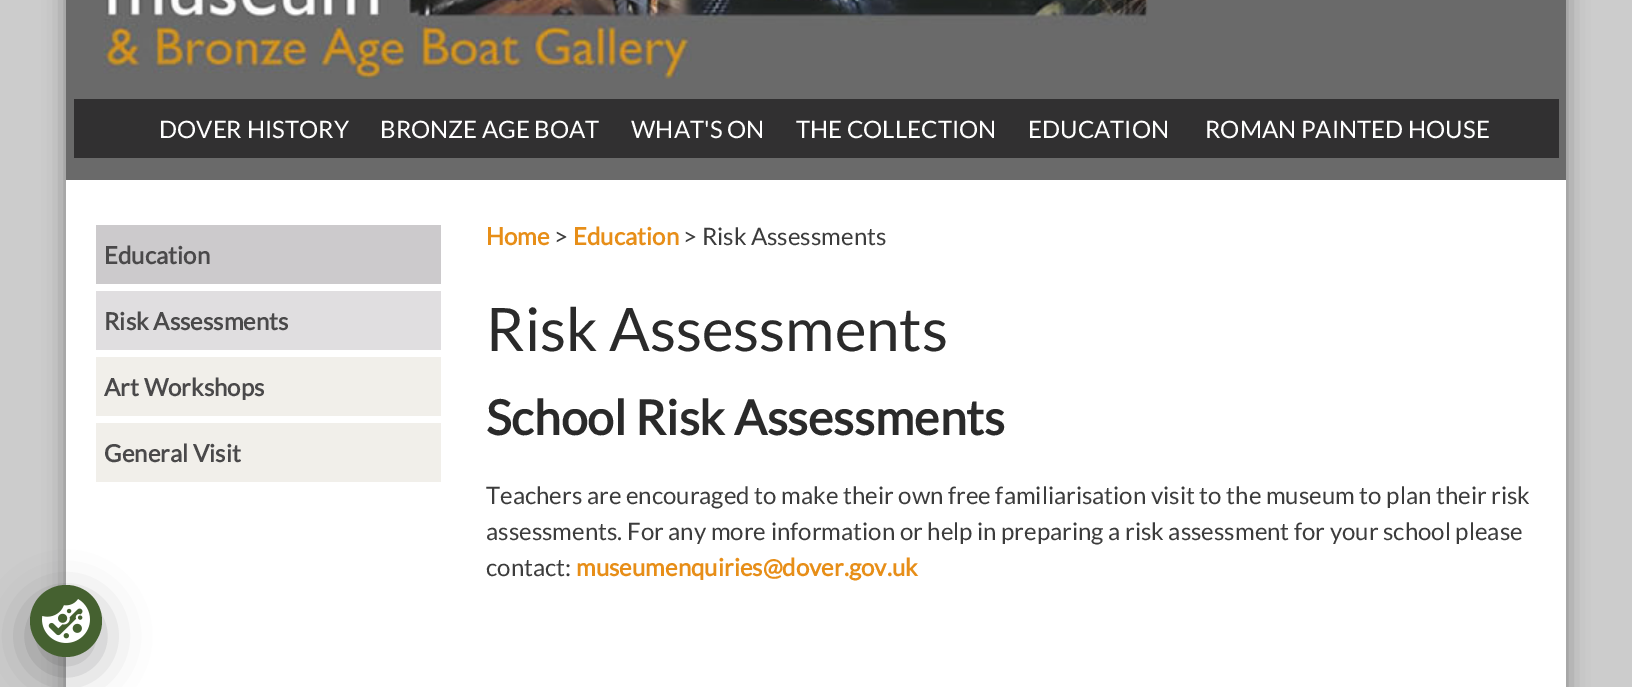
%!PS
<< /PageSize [1632 687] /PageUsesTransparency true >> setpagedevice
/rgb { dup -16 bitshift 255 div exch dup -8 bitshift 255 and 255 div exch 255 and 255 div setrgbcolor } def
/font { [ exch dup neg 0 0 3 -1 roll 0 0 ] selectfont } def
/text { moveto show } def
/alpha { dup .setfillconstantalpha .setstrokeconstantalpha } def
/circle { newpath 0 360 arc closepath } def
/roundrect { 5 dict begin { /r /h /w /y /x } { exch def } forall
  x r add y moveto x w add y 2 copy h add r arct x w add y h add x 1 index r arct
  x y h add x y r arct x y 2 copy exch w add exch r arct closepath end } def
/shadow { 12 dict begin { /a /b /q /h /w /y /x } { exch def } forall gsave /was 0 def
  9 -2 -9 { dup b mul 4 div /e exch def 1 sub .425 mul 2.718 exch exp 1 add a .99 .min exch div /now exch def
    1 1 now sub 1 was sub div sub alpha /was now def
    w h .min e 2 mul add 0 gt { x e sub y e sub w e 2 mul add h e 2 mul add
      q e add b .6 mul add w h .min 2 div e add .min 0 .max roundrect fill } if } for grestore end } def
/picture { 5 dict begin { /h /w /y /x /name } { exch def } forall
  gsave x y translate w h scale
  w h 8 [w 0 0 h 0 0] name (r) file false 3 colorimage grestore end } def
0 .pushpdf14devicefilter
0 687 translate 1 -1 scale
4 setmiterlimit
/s1 { /Lato-Regular 24 font 16#FFFFFF rgb } def
/s2 { /Lato-Bold 24 font 16#4A494A rgb } def
/s3 { /Lato-Bold 24 font 16#E78E18 rgb } def
/s4 { /Lato-Regular 24 font 16#3C3C3C rgb } def
/s5 { /Lato-Regular 60 font 16#2A2A2A rgb } def
/s6 { /Lato-Bold 48 font 16#2A2A2A rgb } def
16#CCCCCC rgb
0 0 1632 687 rectfill
16#808080 rgb
66 -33 1500 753 0 11 1 shadow
16#FFFFFF rgb
66 180 1500 507 rectfill
16#6A6A6A rgb
66 0 1500 180 rectfill
(pic1.raw) 103 0 1045 79 picture
16#313031 rgb
74 99 1485 59 rectfill
s1
(DOVER HISTORY) 159 138 text
(BRONZE AGE BOAT) 380 138 text
(WHAT'S ON) 631 138 text
(THE COLLECTION) 796 138 text
(EDUCATION) 1028 138 text
(ROMAN PAINTED HOUSE) 1205 138 text
16#CCCACC rgb
96 225 345 59 rectfill
s2
(Education) 104 264 text
16#E0DEE0 rgb
96 291 345 59 rectfill
s2
(Risk Assessments) 104 330 text
16#F1EFEA rgb
96 357 345 59 rectfill
s2
(Art Workshops) 104 396 text
16#F1EFEA rgb
96 423 345 59 rectfill
s2
(General Visit) 104 462 text
s3
(Home) 486 245 text
s4
(>) 554 245 text
s3
(Education) 573 245 text
s4
(> Risk Assessments) 683 245 text
s5
(Risk Assessments) 486 351 text
s6
(School Risk Assessments) 486 435 text
s4
(Teachers are encouraged to make their own free familiarisation visit to the museum to plan their risk) 486 504 text
(assessments. For any more information or help in preparing a risk assessment for your school please) 486 540 text
(contact:) 486 576 text
s3
(museumenquiries@dover.gov.uk) 576 576 text
16#000002 rgb
30 600 72 72 36 22.5 0.3 shadow
16#456130 rgb
66 621 36 circle fill
(pic2.raw) 42 599 48 44 picture
.poppdf14devicefilter showpage
